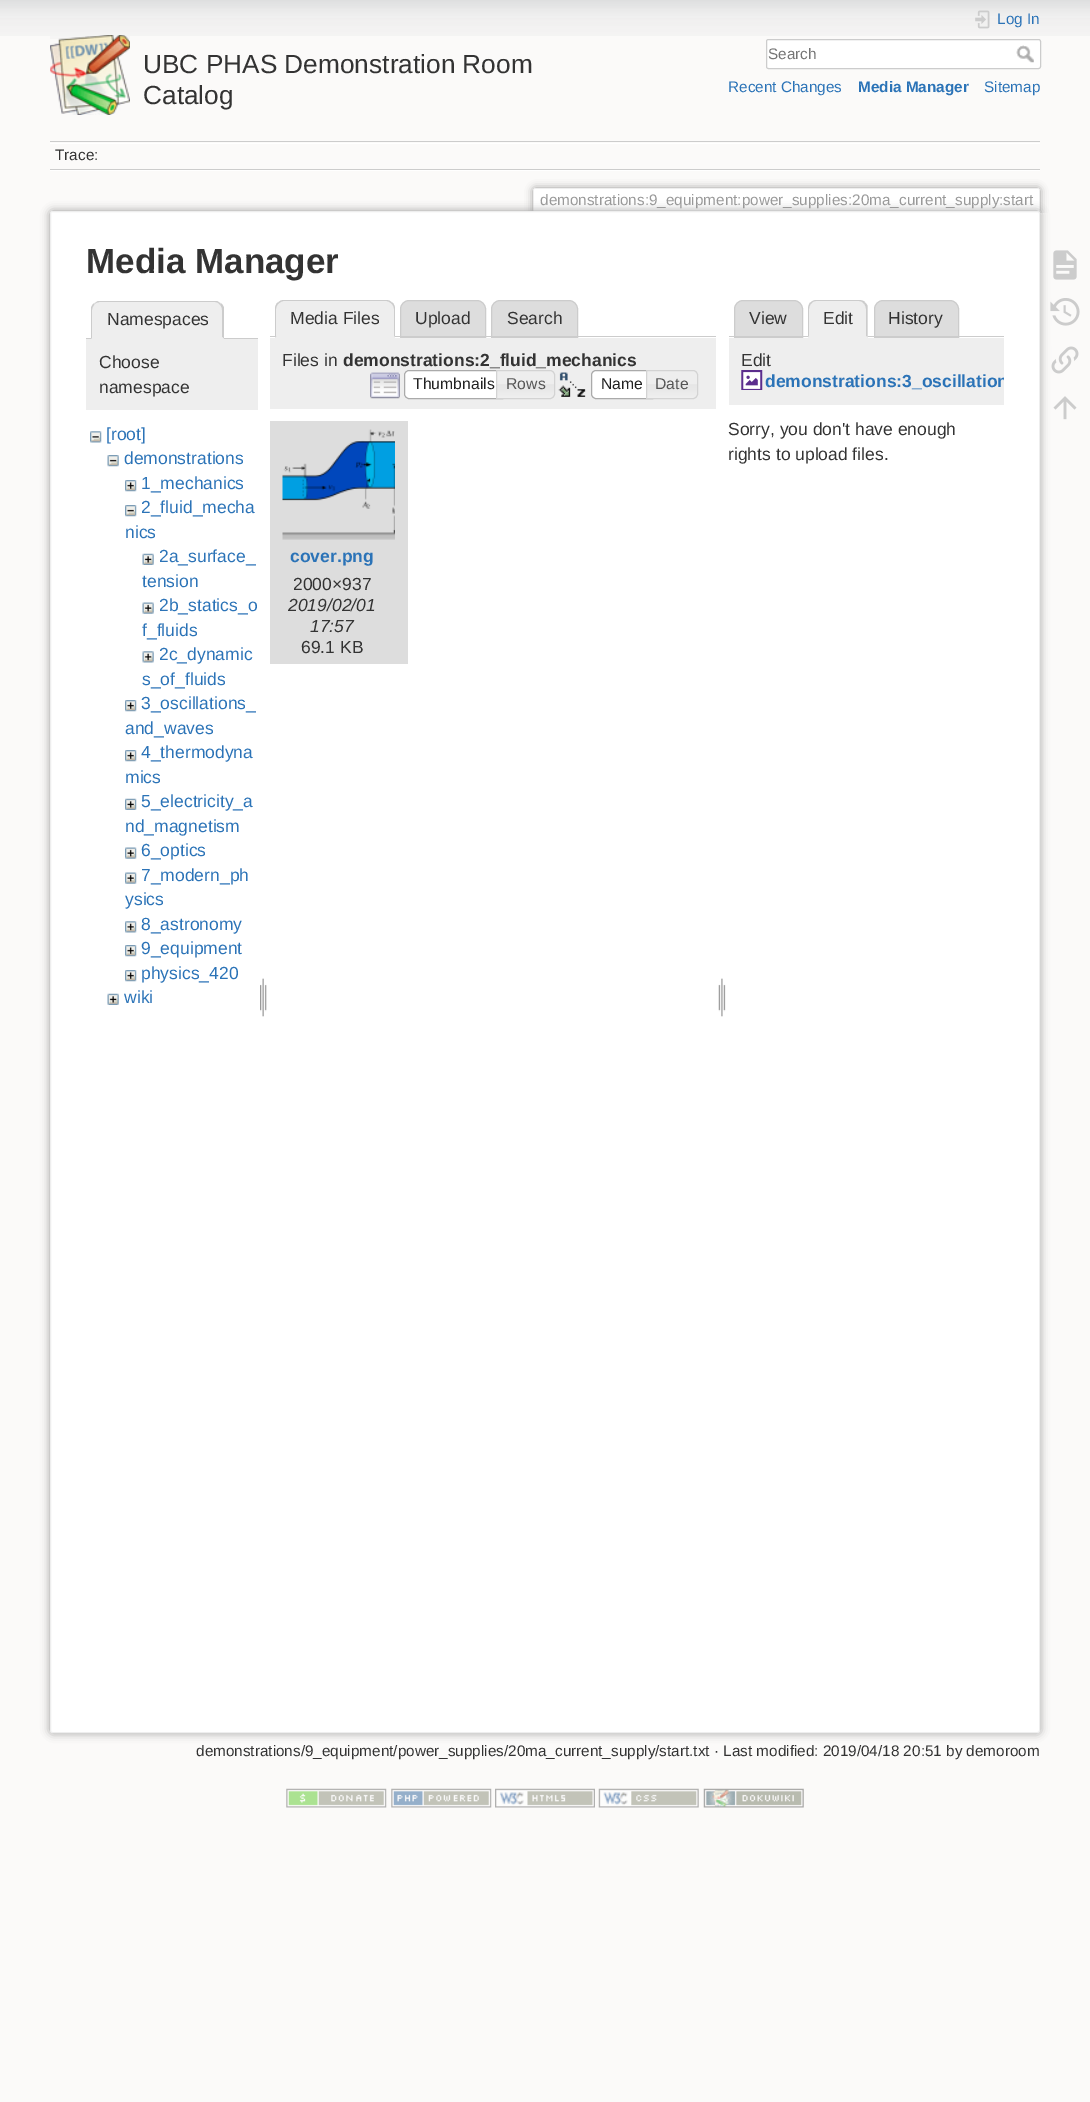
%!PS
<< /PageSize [1090 2102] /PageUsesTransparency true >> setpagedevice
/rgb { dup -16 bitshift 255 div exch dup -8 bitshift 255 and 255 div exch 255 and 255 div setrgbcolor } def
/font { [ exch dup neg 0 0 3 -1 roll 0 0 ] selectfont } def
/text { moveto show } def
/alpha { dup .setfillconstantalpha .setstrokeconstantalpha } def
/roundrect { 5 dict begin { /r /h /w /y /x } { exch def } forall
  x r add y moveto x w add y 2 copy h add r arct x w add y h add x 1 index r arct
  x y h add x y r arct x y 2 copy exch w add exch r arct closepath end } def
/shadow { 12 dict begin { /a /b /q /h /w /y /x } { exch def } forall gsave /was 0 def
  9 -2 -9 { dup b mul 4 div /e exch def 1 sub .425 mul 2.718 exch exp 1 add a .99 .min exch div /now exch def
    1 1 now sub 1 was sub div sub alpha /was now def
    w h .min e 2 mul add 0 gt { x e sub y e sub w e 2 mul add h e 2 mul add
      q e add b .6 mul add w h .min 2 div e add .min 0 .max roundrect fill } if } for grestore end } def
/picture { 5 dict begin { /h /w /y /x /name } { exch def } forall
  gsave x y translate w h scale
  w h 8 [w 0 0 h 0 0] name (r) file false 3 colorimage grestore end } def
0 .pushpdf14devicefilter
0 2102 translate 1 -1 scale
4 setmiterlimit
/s1 { /LiberationSans-Regular 26.25 font 16#333333 rgb } def
/s2 { /LiberationSans-Regular 15.3 font 16#2B73B7 rgb } def
/s3 { /LiberationSans-Regular 15.3 font 16#757575 rgb } def
/s4 { /LiberationSans-Bold 15.3 font 16#2B73B7 rgb } def
/s5 { /LiberationSans-Regular 15.3 font 16#333333 rgb } def
/s6 { /LiberationSans-Regular 15.3 font 16#999999 rgb } def
/s7 { /LiberationSans-Bold 35 font 16#333333 rgb } def
/s8 { /LiberationSans-Regular 17.5 font 16#333333 rgb } def
/s9 { /LiberationSans-Regular 17.5 font 16#2B73B7 rgb } def
/s10 { /LiberationSans-Bold 17.5 font 16#333333 rgb } def
/s11 { /LiberationSans-Regular 15.75 font 16#212121 rgb } def
/s12 { /LiberationSans-Regular 15.75 font 16#555555 rgb } def
/s13 { /LiberationSans-Bold 17.5 font 16#2B73B7 rgb } def
/s14 { /LiberationSans-Italic 17.5 font 16#333333 rgb } def
16#FBFAF9 rgb
0 0 1090 2102 rectfill
(pic1.raw) 0 0 1090 36 picture
(pic2.raw) 50 35 80 80 picture
s1
(UBC PHAS Demonstration Room) 143 73 text
(Catalog) 143 104 text
(pic3.raw) 975 10 15 19 picture
s2
(Log In) 997 24 text
16#FFFFFF rgb
766.5 39.5 274 29 2 roundrect gsave fill grestore
16#CCCCCC rgb
stroke
s3
(Search) 768 59 text
(pic4.raw) 1016 45 18 18 picture
s2
(Recent Changes) 728 92 text
s4
(Media Manager) 858 92 text
s2
(Sitemap) 984 92 text
16#CCCCCC rgb
50 141 990 1 rectfill
16#FFFFFF rgb
50 170 990 1 rectfill
50 143 990 1 rectfill
16#CCCCCC rgb
50 169 990 1 rectfill
s5
(Trace:) 55 160 text
gsave
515 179 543 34 rectclip
16#999999 rgb
533 188 507 25 2.5 4 1 shadow
grestore
16#FFFFFF rgb
535 189 moveto 1038 189 lineto 1038.5 189 1039 189.5 1039 190 curveto 1039 213 lineto 534 213 lineto 534 190 lineto 534 189.5 534.5 189 535 189 curveto closepath fill
16#EEEEEE rgb
534 188 505 1 rectfill
1039 189 1 24 rectfill
533 189 1 24 rectfill
s6
(demonstrations:9_equipment:power_supplies:20ma_current_supply:start) 540 205 text
50 211 990 1522 2.5 4.5 1 shadow
16#FFFFFF rgb
50.5 211.5 989 1521 2 roundrect gsave fill grestore
16#EEEEEE rgb
stroke
s7
(Media Manager) 86 273 text
16#CCCCCC rgb
86 338 172 1 rectfill
16#EEEEEE rgb
100 301 moveto 215 301 lineto 220 301 224 305 224 310 curveto 224 339 lineto 91 339 lineto 91 310 lineto 91 305 95 301 100 301 curveto closepath fill
16#CCCCCC rgb
100 302 moveto 98 302 96 303 94 304 curveto 98 301 lineto 217 301 lineto 221 304 lineto 220 305 lineto 219 303 217 302 215 302 curveto closepath fill
221.5 303.5 moveto 222.5 305 223.5 306 224 308 curveto 224 339 lineto 222 337 lineto 222 310 lineto 222 308 221.5 306 220 305 curveto closepath fill
16#EEEEEE rgb
224 339 moveto 222 337 lineto 222 338 lineto 92 338 lineto 91 339 lineto closepath fill
16#CCCCCC rgb
91 339 moveto 91 308 lineto 91.5 306 92.5 305 93.5 303.5 curveto 94.5 304.5 lineto 93 306 92 308 92 310 curveto 92 338 lineto closepath fill
s8
(Namespaces) 107 325 text
16#EEEEEE rgb
86 339 172 71 rectfill
s8
(Choose) 99 368 text
(namespace) 99 393 text
(pic5.raw) 90 431 12 12 picture
s9
([root]) 106 440 text
(pic6.raw) 107 455 12 12 picture
(demonstrations) 124 464 text
(pic7.raw) 125 480 12 12 picture
(1_mechanics) 141 489 text
(pic8.raw) 125 505 12 12 picture
(2_fluid_mecha) 141 513 text
(nics) 125 538 text
(pic9.raw) 142 553 12 12 picture
(2a_surface_) 159 562 text
(tension) 142 587 text
(pic10.raw) 142 602 12 12 picture
(2b_statics_o) 159 611 text
(f_fluids) 142 636 text
(pic11.raw) 142 651 12 12 picture
(2c_dynamic) 159 660 text
(s_of_fluids) 142 685 text
(pic7.raw) 125 700 12 12 picture
(3_oscillations_) 141 709 text
(and_waves) 125 734 text
(pic7.raw) 125 750 12 12 picture
(4_thermodyna) 141 758 text
(mics) 125 783 text
(pic12.raw) 125 798 12 12 picture
(5_electricity_a) 141 807 text
(nd_magnetism) 125 832 text
(pic13.raw) 125 847 12 12 picture
(6_optics) 141 856 text
(pic13.raw) 125 872 12 12 picture
(7_modern_ph) 141 881 text
(ysics) 125 905 text
(pic14.raw) 125 921 12 12 picture
(8_astronomy) 141 930 text
(pic7.raw) 125 945 12 12 picture
(9_equipment) 141 954 text
(pic7.raw) 125 970 12 12 picture
(physics_420) 141 979 text
(pic9.raw) 107 993 12 12 picture
(wiki) 124 1003 text
(pic15.raw) 260 978 7 39 picture
16#DDDDDD rgb
409 300.5 moveto 477 300.5 lineto 481.5 300.5 485.5 304.5 485.5 309 curveto 485.5 337.5 lineto 400.5 337.5 lineto 400.5 309 lineto 400.5 304.5 404.5 300.5 409 300.5 curveto closepath gsave fill grestore
16#CCCCCC rgb
stroke
16#DDDDDD rgb
500 300.5 moveto 569 300.5 lineto 573.5 300.5 577.5 304.5 577.5 309 curveto 577.5 337.5 lineto 491.5 337.5 lineto 491.5 309 lineto 491.5 304.5 495.5 300.5 500 300.5 curveto closepath gsave fill grestore
16#CCCCCC rgb
stroke
270 336 446 1 rectfill
16#EEEEEE rgb
284 300 moveto 386 300 lineto 391 300 395 304 395 309 curveto 395 338 lineto 275 338 lineto 275 309 lineto 275 304 279 300 284 300 curveto closepath fill
16#CCCCCC rgb
284 300 moveto 282 300 279 301 278 303 curveto 278 304 lineto 280 302 282 301 284 301 curveto 386 301 lineto 388 301 390 302 392 304 curveto 392 303 lineto 391 301 388 300 386 300 curveto closepath fill
395 337.5 moveto 395 309 lineto 395 306.5 394 304 392.5 302.5 curveto 391.5 303.5 lineto 393 305 394 307 394 309 curveto 394 336 lineto 393.5 336 lineto closepath fill
16#EEEEEE rgb
395 338 moveto 275 338 lineto 276 336 lineto 394 336 lineto closepath fill
16#CCCCCC rgb
275 337.5 moveto 276.5 336 lineto 276 336 lineto 276 309 lineto 276 307 277 305 278.5 303.5 curveto 277.5 302.5 lineto 276 304 275 306.5 275 309 curveto closepath fill
s8
(Media Files) 290 324 text
(Upload) 415 324 text
(Search) 507 324 text
16#EEEEEE rgb
270 338 446 71 rectfill
s8
(Files in) 282 366 text
s10
(demonstrations:2_fluid_mechanics) 343 366 text
(pic16.raw) 370 372 30 27 picture
16#FFFFFF rgb
409 370 moveto 503 370 lineto 503 399 lineto 409 399 lineto 406 399 404 397 404 394 curveto 404 375 lineto 404 372 406 370 409 370 curveto closepath fill
(pic17.raw) 404 370 3 28 picture
16#AAAAAA rgb
409 370.5 moveto 502.5 370.5 lineto 502.5 398.5 lineto 409 398.5 lineto 406.5 398.5 404.5 396.5 404.5 394 curveto 404.5 375 lineto 404.5 372.5 406.5 370.5 409 370.5 curveto closepath stroke
s11
(Thumbnails) 413 389 text
(pic18.raw) 497 370 58 29 picture
16#D3D3D3 rgb
496.5 370.5 moveto 550 370.5 lineto 552.5 370.5 554.5 372.5 554.5 375 curveto 554.5 394 lineto 554.5 396.5 552.5 398.5 550 398.5 curveto 496.5 398.5 lineto closepath stroke
s12
(Rows) 506 389 text
(pic19.raw) 558 372 28 25 picture
16#FFFFFF rgb
596 370.5 moveto 652.5 370.5 lineto 652.5 398.5 lineto 596 398.5 lineto 593.5 398.5 591.5 396.5 591.5 394 curveto 591.5 375 lineto 591.5 372.5 593.5 370.5 596 370.5 curveto closepath gsave fill grestore
16#AAAAAA rgb
stroke
s11
(Name) 601 389 text
(pic20.raw) 647 370 50 29 picture
16#D3D3D3 rgb
646.5 370.5 moveto 693 370.5 lineto 695.5 370.5 697.5 372.5 697.5 375 curveto 697.5 394 lineto 697.5 396.5 695.5 398.5 693 398.5 curveto 646.5 398.5 lineto closepath stroke
s12
(Date) 655 389 text
16#DDDDDD rgb
270 421 138 243 rectfill
(pic21.raw) 282 429 113 111 picture
s13
(cover.png) 290 562 text
s8
(2000×937) 293 590 text
s14
(2019/02/01) 288 611 text
(17:57) 310 632 text
s8
(69.1 KB) 301 653 text
(pic22.raw) 718 978 8 39 picture
16#DDDDDD rgb
743 300.5 moveto 794 300.5 lineto 798.5 300.5 802.5 304.5 802.5 309 curveto 802.5 337.5 lineto 734.5 337.5 lineto 734.5 309 lineto 734.5 304.5 738.5 300.5 743 300.5 curveto closepath gsave fill grestore
16#CCCCCC rgb
stroke
s8
(View) 749 324 text
16#DDDDDD rgb
883 300.5 moveto 950 300.5 lineto 954.5 300.5 958.5 304.5 958.5 309 curveto 958.5 337.5 lineto 874.5 337.5 lineto 874.5 309 lineto 874.5 304.5 878.5 300.5 883 300.5 curveto closepath gsave fill grestore
16#CCCCCC rgb
stroke
729 336 275 1 rectfill
16#EEEEEE rgb
817 300 moveto 859 300 lineto 864 300 868 304 868 309 curveto 868 338 lineto 808 338 lineto 808 309 lineto 808 304 812 300 817 300 curveto closepath fill
16#CCCCCC rgb
816 300 moveto 814 300 812 301 810 303 curveto 811 304 lineto 812 302 814 301 816 301 curveto 859 301 lineto 861 301 863 302 864 304 curveto 865 302 lineto 864 301 861 300 859 300 curveto closepath fill
865 302.5 moveto 866 303.5 867 304.5 867.5 306 curveto 867.5 337.5 lineto 866 336 lineto 866 309 lineto 866 307 865 305 864 303.5 curveto closepath fill
16#EEEEEE rgb
868 338 moveto 808 338 lineto 809 336 lineto 866 336 lineto closepath fill
16#CCCCCC rgb
810 302.5 moveto 809 304 808 306.5 808 309 curveto 808 337 lineto 809 336 lineto 809 309 lineto 809 307 810 305 811 303.5 curveto closepath fill
s8
(Edit) 823 324 text
(History) 888 324 text
16#EEEEEE rgb
729 338 275 67 rectfill
s8
(Edit) 741 366 text
(pic23.raw) 741 370 22 20 picture
gsave
729 338 275 67 rectclip
s13
(demonstrations:3_oscillation) 765 387 text
grestore
(Sorry, you don't have enough) 728 435 text
(rights to upload files.) 728 460 text
s5
(demonstrations/9_equipment/power_supplies/20ma_current_supply/start.txt · Last modified: 2019/04/18 20:51 by demoroom) 196 1756 text
(pic24.raw) 1053 250 24 30 picture
(pic25.raw) 1050 298 30 28 picture
(pic26.raw) 1051 346 28 28 picture
(pic27.raw) 1053 396 24 24 picture
(pic28.raw) 286 1788 101 20 picture
(pic29.raw) 391 1788 101 20 picture
(pic30.raw) 495 1788 100 20 picture
(pic31.raw) 598 1788 101 20 picture
(pic32.raw) 703 1788 101 20 picture
.poppdf14devicefilter showpage
